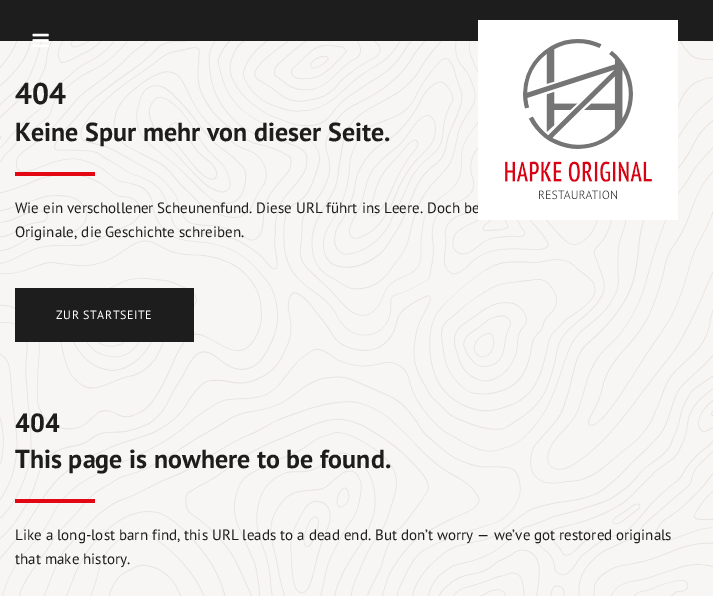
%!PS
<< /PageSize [713 596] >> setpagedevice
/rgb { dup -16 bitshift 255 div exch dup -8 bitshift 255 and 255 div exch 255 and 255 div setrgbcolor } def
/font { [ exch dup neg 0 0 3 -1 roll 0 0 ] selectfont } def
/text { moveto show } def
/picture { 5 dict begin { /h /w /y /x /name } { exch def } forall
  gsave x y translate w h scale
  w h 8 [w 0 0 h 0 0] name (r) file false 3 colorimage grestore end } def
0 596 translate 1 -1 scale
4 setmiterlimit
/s1 { /PTSans-Regular 15 font 16#1D1D1D rgb } def
/s2 { /PTSans-Bold 30 font 16#1D1D1D rgb } def
/s3 { /PTSans-Bold 26 font 16#1D1D1D rgb } def
/s4 { /Roboto-Bold 26 font 16#1D1D1D rgb } def
16#F8F6F4 rgb
0 0 713 596 rectfill
16#1D1D1D rgb
0 0 713 41 rectfill
(pic3.raw) 0 41 713 555 picture
(pic1.raw) 32 33 17 15 picture
s1
(Wie ein verschollener Scheunenfund. Diese URL führt ins Leere. Doch be) 15 213 text
16#FFFFFF rgb
478 20 200 200 rectfill
(pic2.raw) 505 39 147 161 picture
s2
(404) 15 104 text
s3
(Keine Spur mehr von dieser Seite.) 15 141 text
16#E30613 rgb
15 172 80 4 rectfill
s1
(Originale, die Geschichte schreiben.) 15 237 text
15 288 179 54 rectfill
/PTSans-Regular 12 font
16#FFFFFF rgb
56 319 moveto 0.6 0 (ZUR STARTSEITE) ashow
s4
(404) 15 432 text
s3
(This page is nowhere to be found.) 15 468 text
16#E30613 rgb
15 499 80 4 rectfill
s1
(Like a long-lost barn find, this URL leads to a dead end. But don’t worry — we’ve got restored originals) 15 540 text
(that make history.) 15 564 text
showpage
